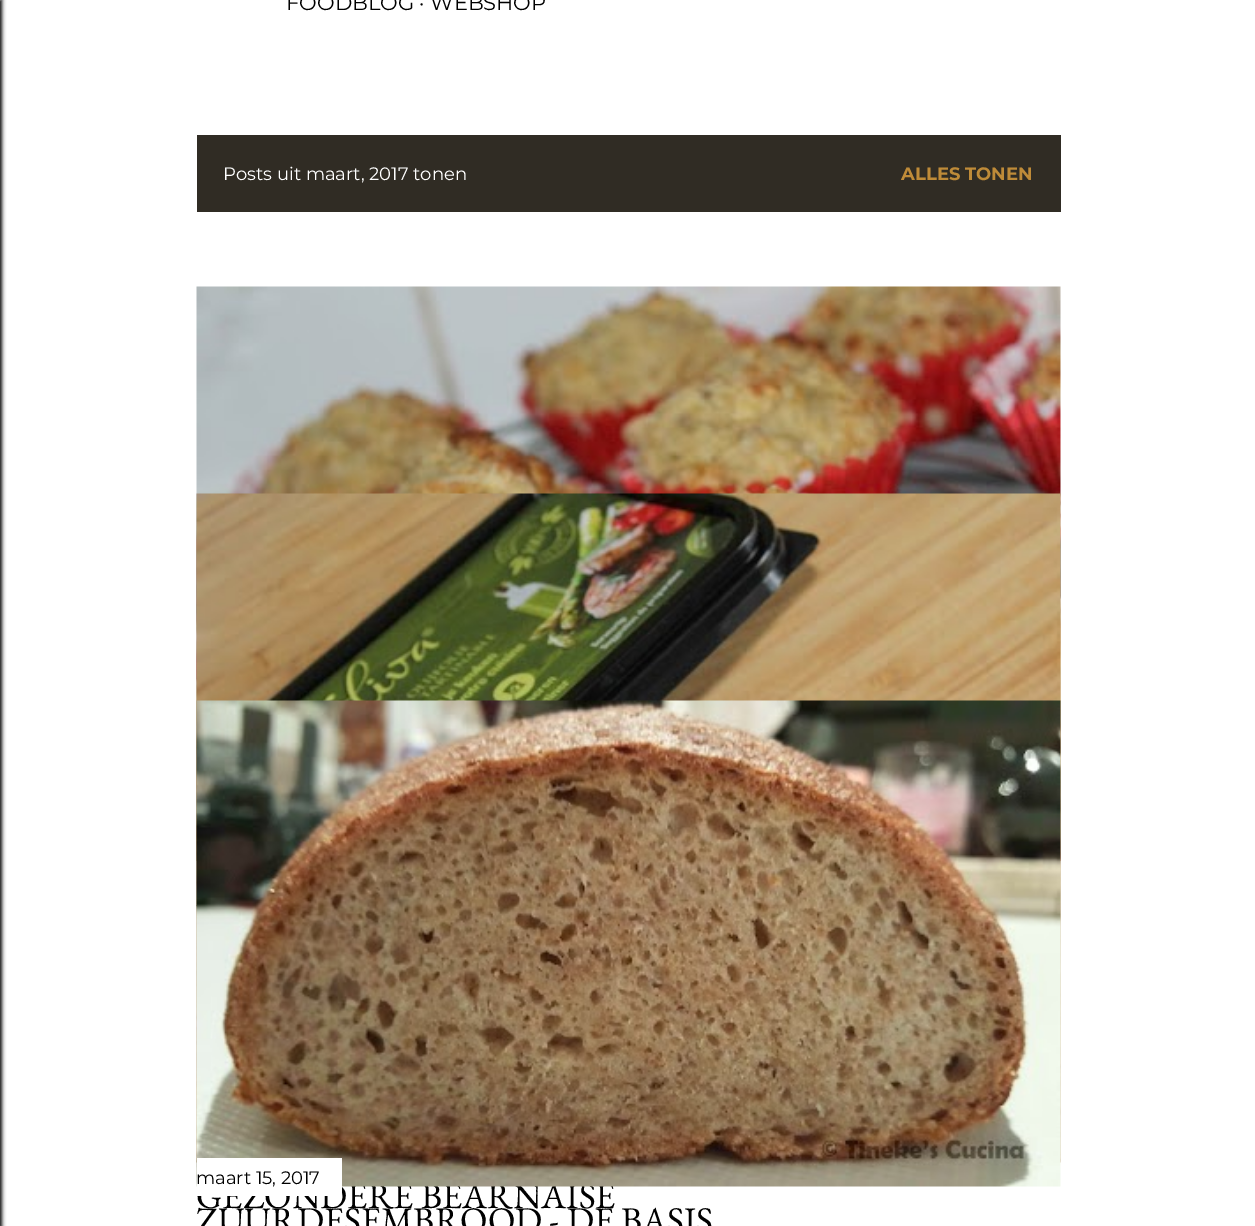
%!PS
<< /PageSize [1255 1226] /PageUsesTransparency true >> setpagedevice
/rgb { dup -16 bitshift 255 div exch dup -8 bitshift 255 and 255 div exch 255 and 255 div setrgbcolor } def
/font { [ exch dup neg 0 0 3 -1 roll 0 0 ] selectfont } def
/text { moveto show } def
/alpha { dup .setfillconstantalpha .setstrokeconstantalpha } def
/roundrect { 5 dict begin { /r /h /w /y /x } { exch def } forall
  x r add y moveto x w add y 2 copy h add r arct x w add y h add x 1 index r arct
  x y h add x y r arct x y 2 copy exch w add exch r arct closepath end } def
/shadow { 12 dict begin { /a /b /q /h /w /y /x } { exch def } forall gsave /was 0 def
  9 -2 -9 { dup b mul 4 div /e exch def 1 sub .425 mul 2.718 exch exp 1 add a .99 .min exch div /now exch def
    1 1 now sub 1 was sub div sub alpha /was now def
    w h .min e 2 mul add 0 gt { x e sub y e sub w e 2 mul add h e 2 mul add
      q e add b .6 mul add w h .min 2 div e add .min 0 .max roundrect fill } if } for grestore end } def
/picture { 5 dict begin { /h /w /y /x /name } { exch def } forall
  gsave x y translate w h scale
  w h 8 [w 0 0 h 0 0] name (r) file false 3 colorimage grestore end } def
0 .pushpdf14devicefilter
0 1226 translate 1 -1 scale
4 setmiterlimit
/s1 { /Montserrat-Regular 21 font 16#000000 rgb } def
/s2 { /Montserrat-Regular 18 font 16#FFFFFF rgb } def
/s3 { /Montserrat-Bold 18 font 16#BF8B38 rgb } def
/s4 { /EBGaramond-Regular 36 font 16#000000 rgb } def
/s5 { /Montserrat-Regular 18 font 16#000000 rgb } def
16#FFFFFF rgb
0 0 1255 1226 rectfill
16#000000 rgb
-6 0 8 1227 0 2 1 shadow
s1
(FOODBLOG · WEBSHOP) 286 10 text
16#302C24 rgb
197 135 864 77 rectfill
s2
(Posts uit maart, 2017 tonen) 223 180 text
s3
(ALLES TONEN) 901 180 text
(pic1.raw) 196 286 865 575 picture
(pic3.raw) 196 493 865 670 picture
s4
(GEZONDERE BEARNAISE) 196 1208 text
(pic2.raw) 196 700 865 487 picture
16#FFFFFF rgb
197 1158 145 38 rectfill
s5
(maart 15, 2017) 196 1184 text
s4
(ZUURDESEMBROOD - DE BASIS) 196 1232 text
.poppdf14devicefilter showpage
